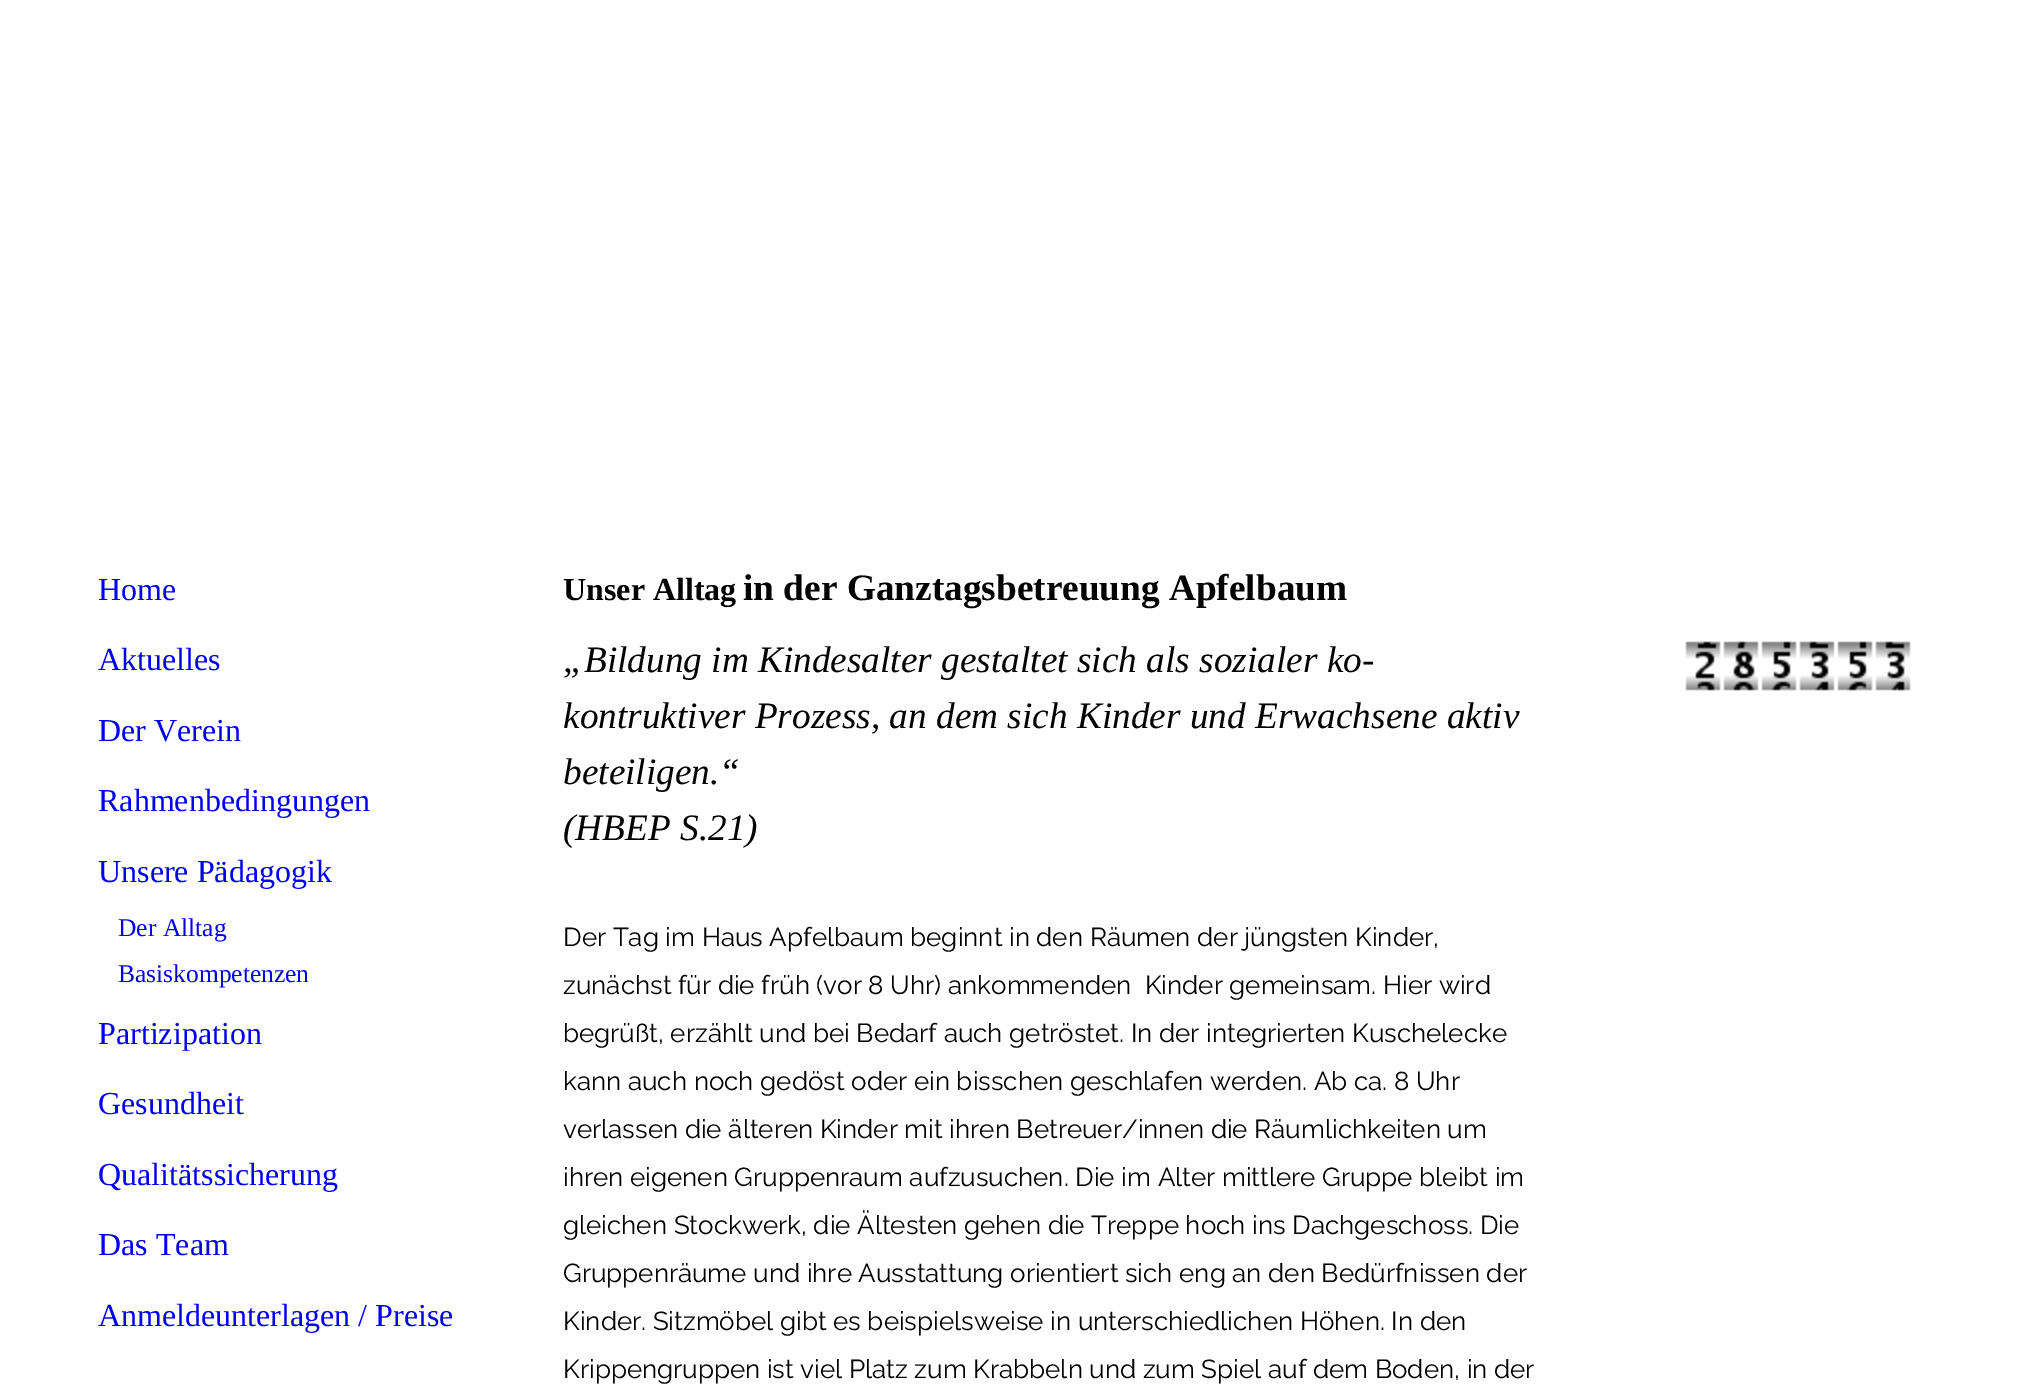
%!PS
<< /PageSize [2028 1387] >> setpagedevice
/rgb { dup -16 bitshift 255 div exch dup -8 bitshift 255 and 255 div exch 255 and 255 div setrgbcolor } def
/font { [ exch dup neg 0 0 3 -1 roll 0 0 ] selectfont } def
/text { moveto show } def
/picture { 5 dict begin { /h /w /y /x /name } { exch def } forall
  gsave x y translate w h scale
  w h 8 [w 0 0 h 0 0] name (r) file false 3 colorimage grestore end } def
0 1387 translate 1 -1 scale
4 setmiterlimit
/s1 { /LiberationSerif-Regular 32 font 16#0000EE rgb } def
/s2 { /LiberationSerif-Regular 25.5 font 16#0000EE rgb } def
/s3 { /LiberationSerif-Bold 32 font 16#000000 rgb } def
/s4 { /LiberationSerif-Bold 37.3 font 16#000000 rgb } def
/s5 { /LiberationSerif-Italic 37.3 font 16#000000 rgb } def
/s6 { /Raleway-Regular 26 font 16#000000 rgb } def
16#FFFFFF rgb
0 0 2028 1387 rectfill
s1
(Home) 98 600 text
(Aktuelles) 98 670 text
(Der Verein) 98 741 text
(Rahmenbedingungen) 98 811 text
(Unsere Pädagogik) 98 882 text
s2
(Der Alltag) 118 936 text
(Basiskompetenzen) 118 982 text
s1
(Partizipation) 98 1044 text
(Gesundheit) 98 1114 text
(Qualitätssicherung) 98 1185 text
(Das Team) 98 1255 text
(Anmeldeunterlagen / Preise) 98 1326 text
s3
(Unser Alltag) 563 600 text
s4
(in der Ganztagsbetreuung Apfelbaum) 743 600 text
s5
(„Bildung im Kindesalter gestaltet sich als sozialer ko-) 563 672 text
(kontruktiver Prozess, an dem sich Kinder und Erwachsene aktiv) 563 728 text
(beteiligen.“) 563 784 text
(\(HBEP S.21\)) 563 840 text
s6
(Der Tag im Haus Apfelbaum beginnt in den Räumen der jüngsten Kinder,) 563 946 text
(zunächst für die früh \(vor 8 Uhr\) ankommenden  Kinder gemeinsam. Hier wird) 563 994 text
(begrüßt, erzählt und bei Bedarf auch getröstet. In der integrierten Kuschelecke) 563 1042 text
(kann auch noch gedöst oder ein bisschen geschlafen werden. Ab ca. 8 Uhr) 563 1090 text
(verlassen die älteren Kinder mit ihren Betreuer/innen die Räumlichkeiten um) 563 1138 text
(ihren eigenen Gruppenraum aufzusuchen. Die im Alter mittlere Gruppe bleibt im) 563 1186 text
(gleichen Stockwerk, die Ältesten gehen die Treppe hoch ins Dachgeschoss. Die) 563 1234 text
(Gruppenräume und ihre Ausstattung orientiert sich eng an den Bedürfnissen der) 563 1282 text
(Kinder. Sitzmöbel gibt es beispielsweise in unterschiedlichen Höhen. In den) 563 1330 text
(Krippengruppen ist viel Platz zum Krabbeln und zum Spiel auf dem Boden, in der) 563 1378 text
(pic1.raw) 1685 641 226 50 picture
showpage
